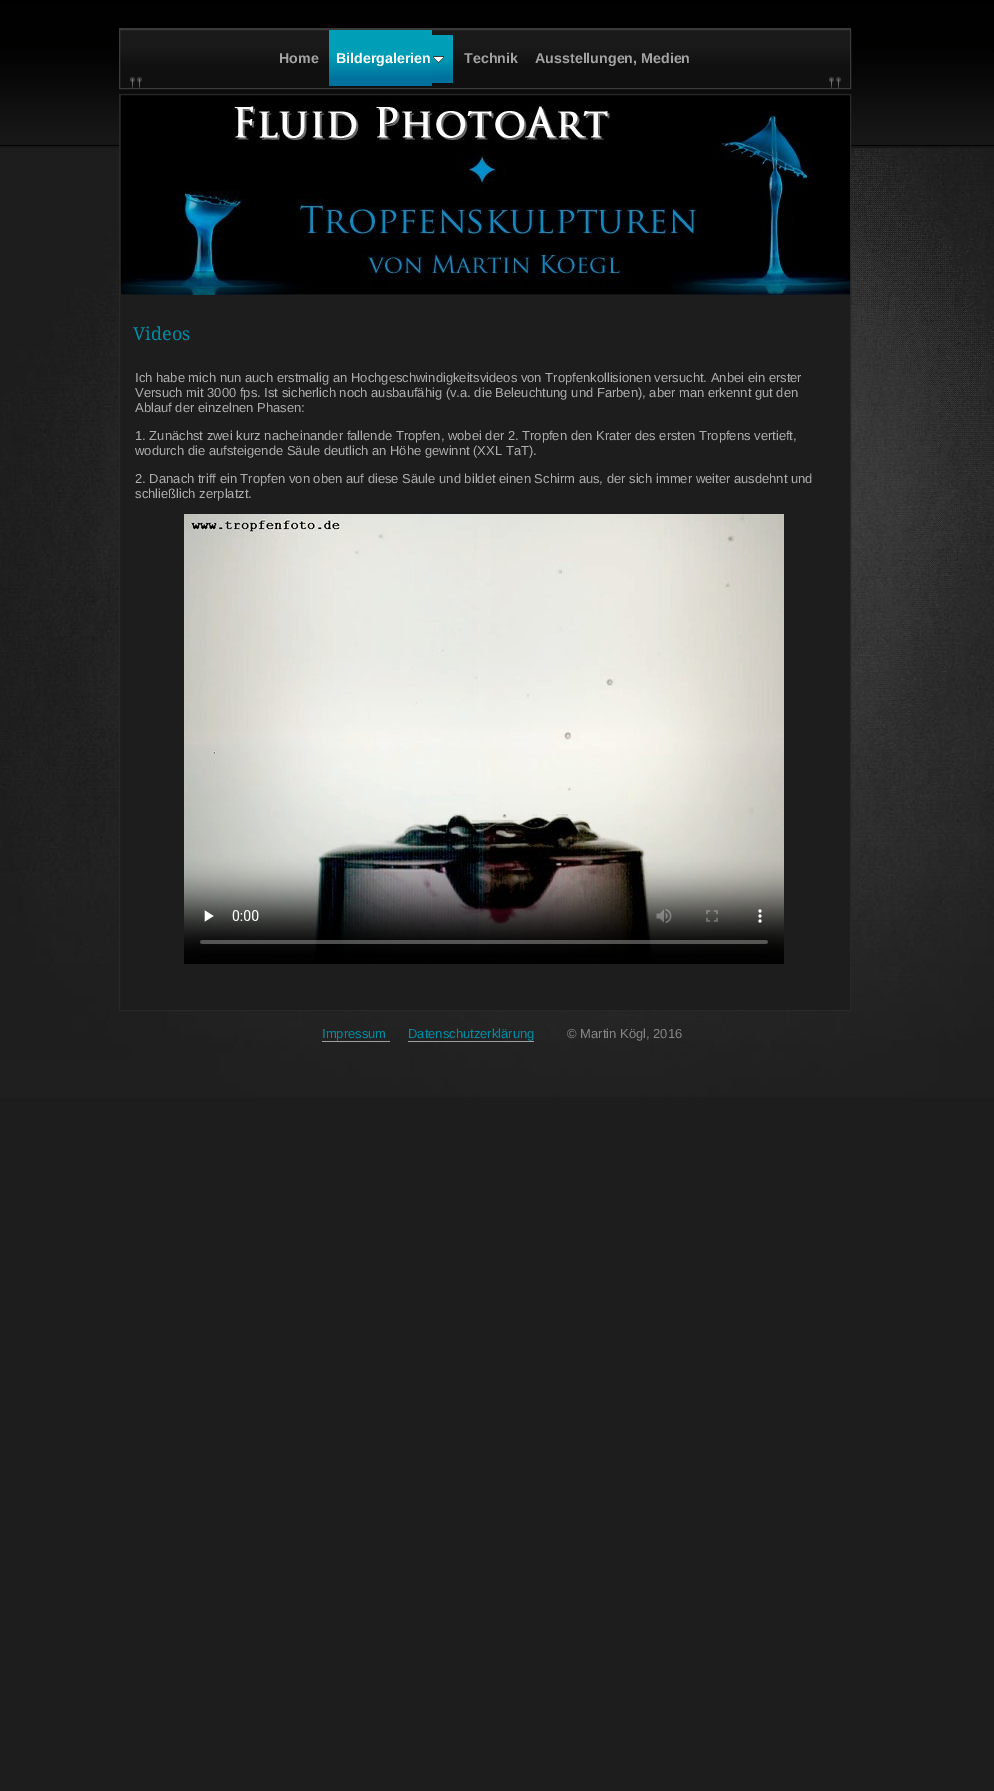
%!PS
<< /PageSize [994 1791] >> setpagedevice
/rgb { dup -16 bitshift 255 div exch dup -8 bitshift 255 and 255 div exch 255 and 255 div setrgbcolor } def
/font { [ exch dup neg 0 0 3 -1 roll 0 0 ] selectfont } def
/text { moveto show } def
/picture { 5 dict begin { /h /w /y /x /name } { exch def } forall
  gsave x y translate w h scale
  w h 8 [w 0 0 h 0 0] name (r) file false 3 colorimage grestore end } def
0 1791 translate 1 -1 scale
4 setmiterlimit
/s1 { /LiberationSans-Bold 14.25 font 16#A4A4A4 rgb } def
/s2 { /LiberationSans-Bold 14.25 font 16#FFFFFF rgb } def
/s3 { /DroidSerif-Regular 18 font 16#008DA5 rgb } def
/s4 { /LiberationSans-Regular 13 font 16#AEAEAE rgb } def
/s5 { /LiberationSans-Regular 13 font 16#008DA5 rgb } def
/s6 { /LiberationSans-Regular 13 font 16#868686 rgb } def
16#1C1D1C rgb
0 0 994 1791 rectfill
(pic1.raw) 0 0 994 1097 picture
16#3A3A3A rgb
119 28 732 1 rectfill
gsave 120 30 moveto 850 30 lineto 850 88 lineto 120 88 lineto closepath clip newpath
<< /ShadingType 2 /ColorSpace /DeviceRGB /Coords [120 88 120 30] /Extend [true true] /Function << /FunctionType 3 /Domain [0 1] /Functions [<< /FunctionType 2 /Domain [0 1] /C0 [0.063 0.063 0.063] /C1 [0.063 0.063 0.063] /N 1 >> << /FunctionType 2 /Domain [0 1] /C0 [0.063 0.063 0.063] /C1 [0.102 0.102 0.102] /N 1 >> << /FunctionType 2 /Domain [0 1] /C0 [0.102 0.102 0.102] /C1 [0.102 0.102 0.102] /N 1 >>] /Bounds [0.38 0.69] /Encode [0 1 0 1 0 1] >> >> shfill grestore
119.5 29.5 731 59 rectstroke
(pic2.raw) 130 77 711 11 picture
s1
(Home) 279 63 text
gsave 329 30 moveto 432 30 lineto 432 86 lineto 329 86 lineto closepath clip newpath
<< /ShadingType 2 /ColorSpace /DeviceRGB /Coords [329 86 329 30] /Extend [true true] /Function << /FunctionType 3 /Domain [0 1] /Functions [<< /FunctionType 2 /Domain [0 1] /C0 [0 0.439 0.612] /C1 [0 0.439 0.612] /N 1 >> << /FunctionType 2 /Domain [0 1] /C0 [0 0.439 0.612] /C1 [0 0.624 0.718] /N 1 >> << /FunctionType 2 /Domain [0 1] /C0 [0 0.624 0.718] /C1 [0 0.624 0.718] /N 1 >>] /Bounds [0.11 0.56] /Encode [0 1 0 1 0 1] >> >> shfill grestore
gsave 432 35 moveto 453 35 lineto 453 83 lineto 432 83 lineto closepath clip newpath
<< /ShadingType 2 /ColorSpace /DeviceRGB /Coords [432 83 432 35] /Extend [true true] /Function << /FunctionType 3 /Domain [0 1] /Functions [<< /FunctionType 2 /Domain [0 1] /C0 [0 0.439 0.612] /C1 [0 0.439 0.612] /N 1 >> << /FunctionType 2 /Domain [0 1] /C0 [0 0.439 0.612] /C1 [0 0.624 0.718] /N 1 >> << /FunctionType 2 /Domain [0 1] /C0 [0 0.624 0.718] /C1 [0 0.624 0.718] /N 1 >>] /Bounds [0.11 0.56] /Encode [0 1 0 1 0 1] >> >> shfill grestore
s2
(Bildergalerien) 336 63 text
(pic3.raw) 433 56 11 7 picture
s1
(Technik) 464 63 text
(Ausstellungen, Medien) 535 63 text
16#1C1D1C rgb
120 95 730 915 rectfill
(pic4.raw) 121 95 729 200 picture
16#282828 rgb
119.5 94.5 731 916 rectstroke
s3
(Videos) 133 340 text
s4
(Ich habe mich nun auch erstmalig an Hochgeschwindigkeitsvideos von Tropfenkollisionen versucht. Anbei ein erster) 135 382 text
(Versuch mit 3000 fps. Ist sicherlich noch ausbaufähig \(v.a. die Beleuchtung und Farben\), aber man erkennt gut den) 135 397 text
(Ablauf der einzelnen Phasen:) 135 412 text
(1. Zunächst zwei kurz nacheinander fallende Tropfen, wobei der 2. Tropfen den Krater des ersten Tropfens vertieft,) 135 440 text
(wodurch die aufsteigende Säule deutlich an Höhe gewinnt \(XXL TaT\).) 135 455 text
(2. Danach triff ein Tropfen von oben auf diese Säule und bildet einen Schirm aus, der sich immer weiter ausdehnt und) 135 483 text
(schließlich zerplatzt.) 135 498 text
(pic5.raw) 184 514 600 450 picture
s5
(Impressum) 322 1038 text
16#9E9E9E rgb
322 1041 68 1 rectfill
s5
(Datenschutzerklärung) 408 1038 text
16#9E9E9E rgb
408 1041 126 1 rectfill
s6
(© Martin Kögl, 2016) 567 1038 text
showpage
